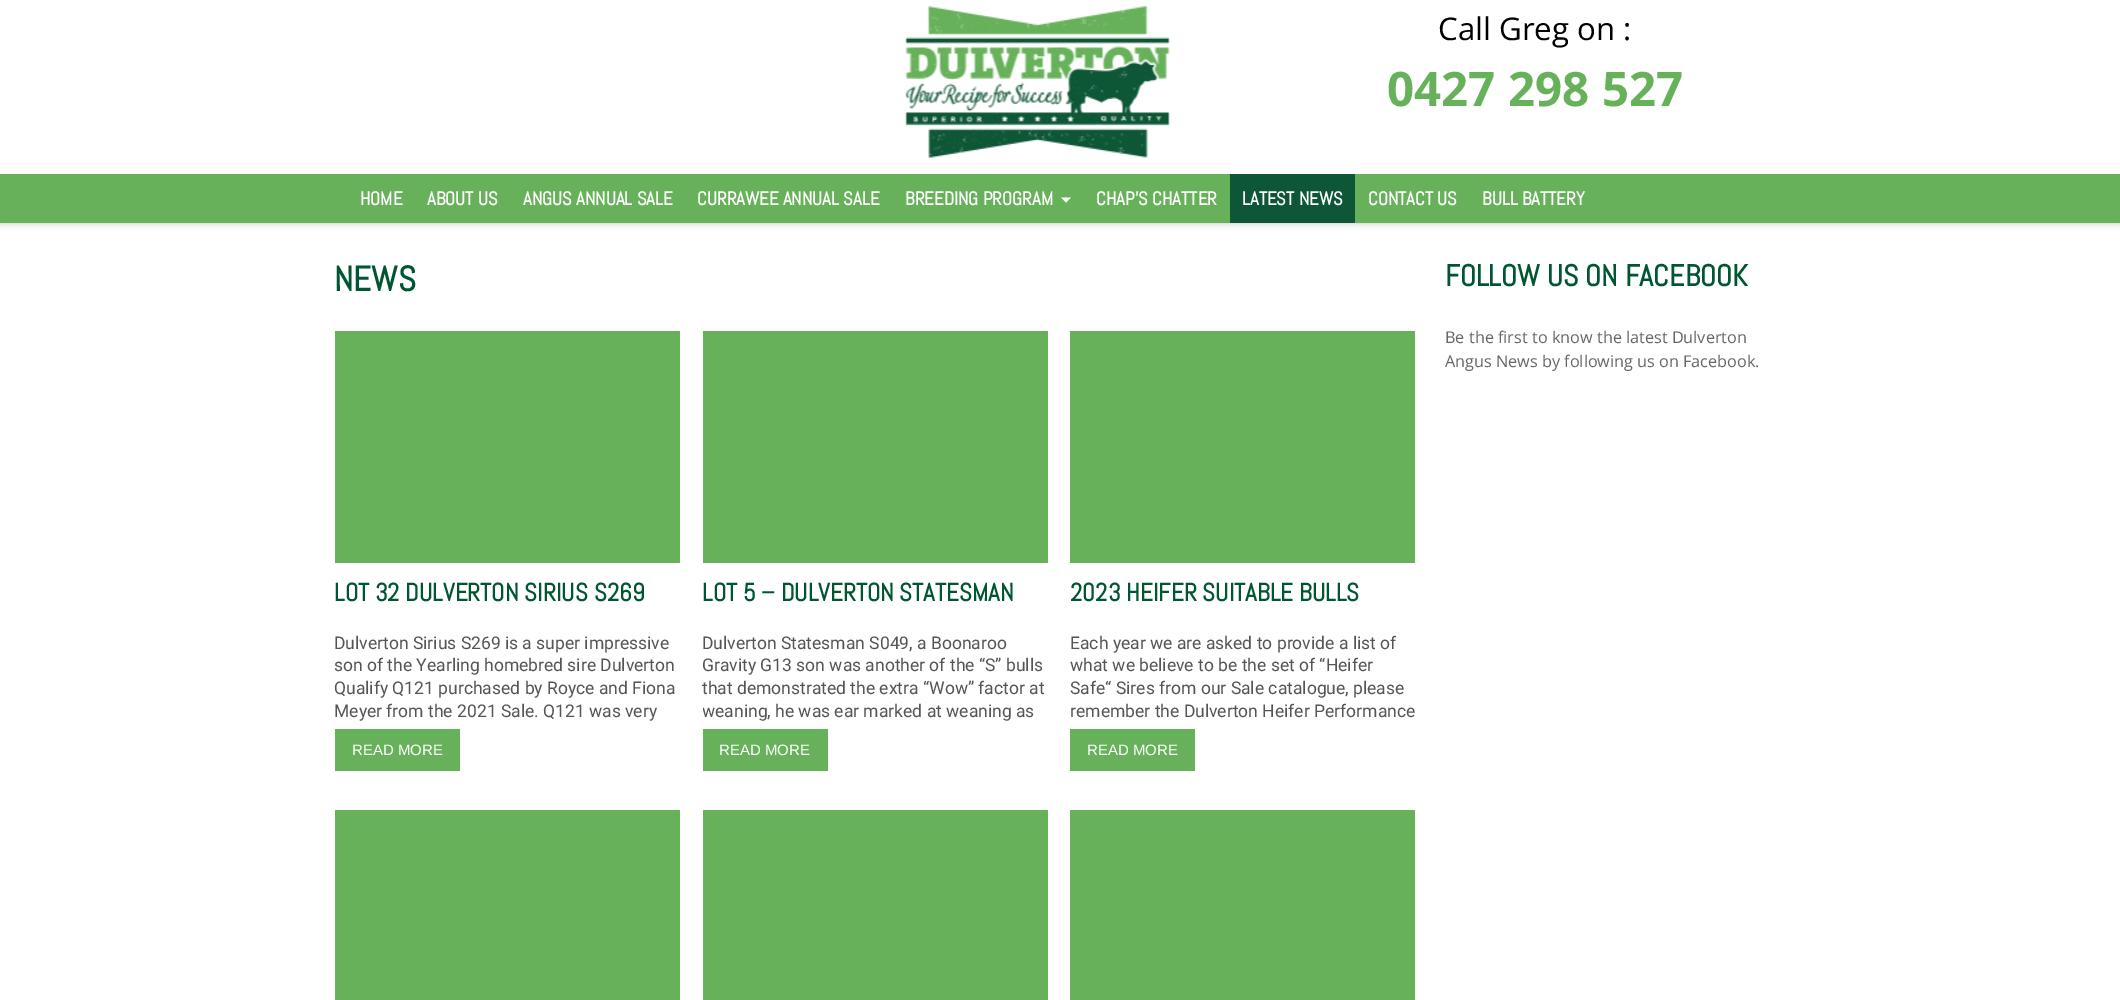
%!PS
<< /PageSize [2120 1000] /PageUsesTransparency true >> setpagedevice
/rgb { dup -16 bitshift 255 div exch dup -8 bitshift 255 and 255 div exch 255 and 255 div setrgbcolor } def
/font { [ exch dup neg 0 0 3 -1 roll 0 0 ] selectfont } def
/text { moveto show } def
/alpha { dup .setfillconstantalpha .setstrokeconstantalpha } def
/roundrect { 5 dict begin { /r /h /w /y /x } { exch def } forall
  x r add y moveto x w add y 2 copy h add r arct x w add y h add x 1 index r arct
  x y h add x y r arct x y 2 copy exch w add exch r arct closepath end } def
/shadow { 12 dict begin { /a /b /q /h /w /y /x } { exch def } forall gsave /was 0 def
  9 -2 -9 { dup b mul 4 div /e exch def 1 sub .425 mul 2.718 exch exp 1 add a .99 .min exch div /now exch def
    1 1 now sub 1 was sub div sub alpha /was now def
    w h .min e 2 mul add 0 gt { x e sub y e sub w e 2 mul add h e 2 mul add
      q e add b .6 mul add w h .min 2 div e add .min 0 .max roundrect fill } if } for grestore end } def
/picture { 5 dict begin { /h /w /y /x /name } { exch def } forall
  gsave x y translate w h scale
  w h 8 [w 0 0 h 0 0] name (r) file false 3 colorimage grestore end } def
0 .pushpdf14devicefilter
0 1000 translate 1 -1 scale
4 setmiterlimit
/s1 { /OpenSans-Regular 31.25 font 16#000000 rgb } def
/s2 { /OpenSans-Bold 47.5 font 16#67B15A rgb } def
/s3 { /Abel-Bold 18.75 font 16#FFFFFF rgb } def
/s4 { /Abel-Bold 35 font 16#005631 rgb } def
/s5 { /Abel-Bold 25 font 16#005631 rgb } def
/s6 { /Roboto-Regular 17.5 font 16#555555 rgb } def
/s7 { /LiberationSans-Regular 15 font 16#FFFFFF rgb } def
/s8 { /Abel-Bold 30 font 16#005631 rgb } def
/s9 { /OpenSans-Regular 16.25 font 16#666666 rgb } def
16#FFFFFF rgb
0 0 2120 1000 rectfill
16#C1C1C1 rgb
0 0 2120 223 0 4 1 shadow
16#FFFFFF rgb
0 0 2120 174 rectfill
(pic1.raw) 905 6 265 152 picture
s1
(Call Greg on :) 1438 40 text
s2
(0427 298 527) 1387 106 text
0 174 2120 49 rectfill
s3
(HOME) 360 205 text
(ABOUT US) 427 205 text
(ANGUS ANNUAL SALE) 523 205 text
(CURRAWEE ANNUAL SALE) 697 205 text
(BREEDING PROGRAM) 905 205 text
1061 197.5 moveto 1071 197.5 lineto 1066 202.5 lineto closepath fill
(CHAP’S CHATTER) 1096 205 text
16#0D5636 rgb
1230 174 125 49 rectfill
s3
(LATEST NEWS) 1242 205 text
(CONTACT US) 1368 205 text
(BULL BATTERY) 1482 205 text
s4
(NEWS) 334 291 text
16#67B15A rgb
335 331 345 232 rectfill
s5
(LOT 32 DULVERTON SIRIUS S269) 334 601 text
s6
(Dulverton Sirius S269 is a super impressive) 334 649 text
(son of the Yearling homebred sire Dulverton) 334 671 text
(Qualify Q121 purchased by Royce and Fiona) 334 694 text
(Meyer from the 2021 Sale. Q121 was very) 334 717 text
16#67B15A rgb
335 729 125 42 rectfill
s7
(READ MORE) 352 755 text
16#67B15A rgb
703 331 345 232 rectfill
s5
(LOT 5 – DULVERTON STATESMAN) 702 601 text
s6
(Dulverton Statesman S049, a Boonaroo) 702 649 text
(Gravity G13 son was another of the “S” bulls) 702 671 text
(that demonstrated the extra “Wow” factor at) 702 694 text
gsave
703 631 345 92 rectclip
(weaning, he was ear marked at weaning as) 702 717 text
grestore
16#67B15A rgb
703 729 125 42 rectfill
s7
(READ MORE) 719 755 text
16#67B15A rgb
1070 331 345 232 rectfill
s5
(2023 HEIFER SUITABLE BULLS) 1070 601 text
s6
(Each year we are asked to provide a list of) 1070 649 text
(what we believe to be the set of “Heifer) 1070 671 text
(Safe“ Sires from our Sale catalogue, please) 1070 694 text
(remember the Dulverton Heifer Performance) 1070 717 text
16#67B15A rgb
1070 729 125 42 rectfill
s7
(READ MORE) 1087 755 text
16#67B15A rgb
335 810 345 190 rectfill
703 810 345 190 rectfill
1070 810 345 190 rectfill
s8
(FOLLOW US ON FACEBOOK) 1445 286 text
s9
(Be the first to know the latest Dulverton) 1445 343 text
(Angus News by following us on Facebook.) 1445 367 text
.poppdf14devicefilter showpage
